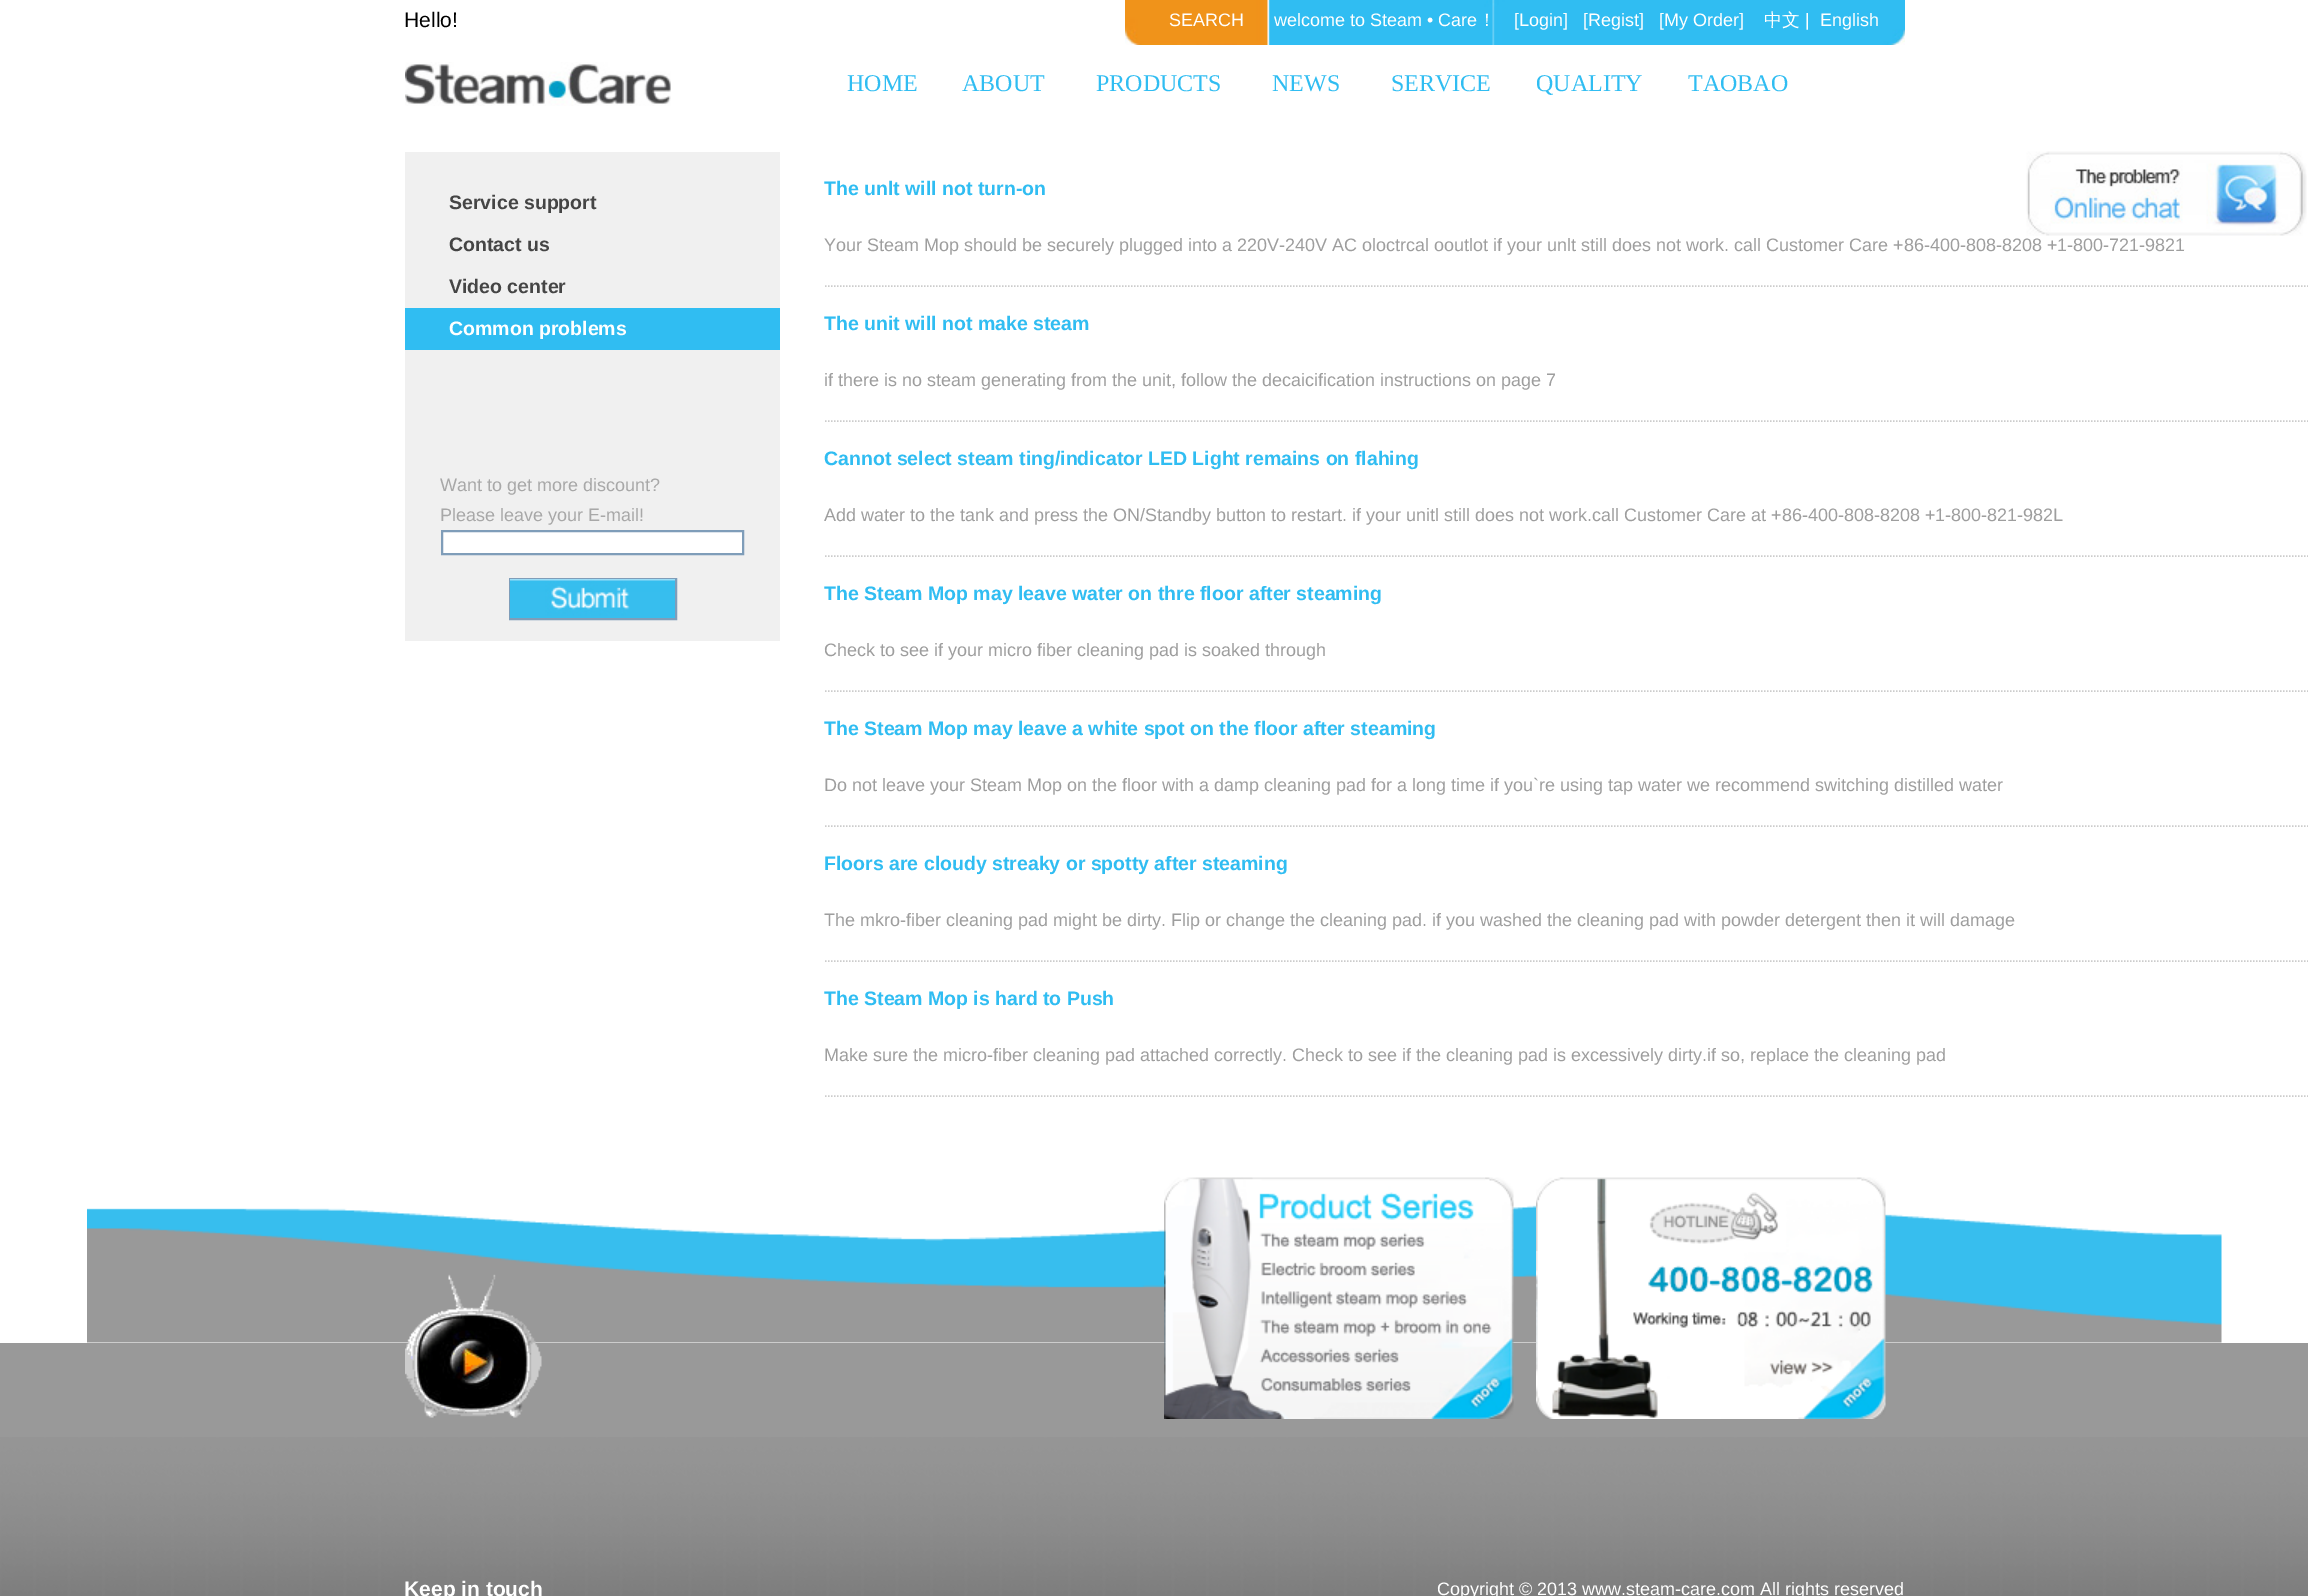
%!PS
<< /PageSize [2308 1596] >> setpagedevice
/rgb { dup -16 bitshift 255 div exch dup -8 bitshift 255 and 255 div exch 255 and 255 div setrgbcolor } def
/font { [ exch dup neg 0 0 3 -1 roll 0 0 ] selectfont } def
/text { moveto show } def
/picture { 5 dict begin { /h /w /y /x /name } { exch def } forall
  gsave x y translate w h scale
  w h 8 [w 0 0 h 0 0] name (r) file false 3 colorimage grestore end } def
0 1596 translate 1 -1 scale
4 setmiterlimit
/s1 { /LiberationSans-Regular 21 font 16#000000 rgb } def
/s2 { /LiberationSans-Regular 18 font 16#FFFFFF rgb } def
/s3 { /WenQuanYiZenHei-Medium 18 font 16#FFFFFF rgb } def
/s4 { /LiberationSerif-Regular 24 font 16#30BDF2 rgb } def
/s5 { /LiberationSans-Bold 19.5 font 16#454545 rgb } def
/s6 { /LiberationSans-Bold 19.5 font 16#FFFFFF rgb } def
/s7 { /LiberationSans-Regular 18 font 16#A8A8A8 rgb } def
/s8 { /LiberationSans-Bold 19.5 font 16#30BDF2 rgb } def
/s9 { /LiberationSans-Regular 18 font 16#9E9E9E rgb } def
/s10 { /LiberationSans-Bold 21 font 16#FFFFFF rgb } def
16#FFFFFF rgb
0 0 2308 1596 rectfill
(pic1.raw) 1125 0 780 45 picture
s1
(Hello!) 404 27 text
s2
(SEARCH) 1169 26 text
(welcome to Steam • Care) 1274 26 text
s3
(！) 1478 26 text
s2
([Login]) 1514 26 text
([Regist]) 1583 26 text
([My Order]) 1659 26 text
s3
(中文) 1764 26 text
s2
(|) 1805 26 text
(English) 1820 26 text
(pic2.raw) 405 62 266 44 picture
s4
(HOME) 847 91 text
(ABOUT) 962 91 text
(PRODUCTS) 1096 91 text
(NEWS) 1272 91 text
(SERVICE) 1391 91 text
(QUALITY) 1536 91 text
(TAOBAO) 1688 91 text
(pic3.raw) 2026 151 281 85 picture
16#F0F0F0 rgb
405 152 375 489 rectfill
s5
(Service support) 449 209 text
(Contact us) 449 251 text
(Video center) 449 293 text
16#30BDF2 rgb
405 308 375 42 rectfill
s6
(Common problems) 449 335 text
s7
(Want to get more discount?) 440 491 text
(Please leave your E-mail!) 440 521 text
16#FFFFFF rgb
442 531 moveto 743 531 lineto 743 554 lineto 442 554 lineto closepath gsave fill grestore
16#7F9DB9 rgb
2 setlinewidth
stroke
510 579 166 40 rectstroke
(pic4.raw) 510 579 165 39 picture
16#CCCCCC rgb
1.5 setlinewidth
[1.5 1.5] 0 setdash
825 286 moveto 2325 286 lineto stroke
s8
(The unlt will not turn-on) 824 195 text
s9
(Your Steam Mop should be securely plugged into a 220V-240V AC oloctrcal ooutlot if your unlt still does not work. call Customer Care +86-400-808-8208 +1-800-721-9821) 824 251 text
16#CCCCCC rgb
825 421 moveto 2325 421 lineto stroke
s8
(The unit will not make steam) 824 330 text
s9
(if there is no steam generating from the unit, follow the decaicification instructions on page 7) 824 386 text
16#CCCCCC rgb
825 556 moveto 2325 556 lineto stroke
s8
(Cannot select steam ting/indicator LED Light remains on flahing) 824 465 text
s9
(Add water to the tank and press the ON/Standby button to restart. if your unitl still does not work.call Customer Care at +86-400-808-8208 +1-800-821-982L) 824 521 text
16#CCCCCC rgb
825 691 moveto 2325 691 lineto stroke
s8
(The Steam Mop may leave water on thre floor after steaming) 824 600 text
s9
(Check to see if your micro fiber cleaning pad is soaked through) 824 656 text
16#CCCCCC rgb
825 826 moveto 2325 826 lineto stroke
s8
(The Steam Mop may leave a white spot on the floor after steaming) 824 735 text
s9
(Do not leave your Steam Mop on the floor with a damp cleaning pad for a long time if you`re using tap water we recommend switching distilled water) 824 791 text
16#CCCCCC rgb
825 961 moveto 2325 961 lineto stroke
s8
(Floors are cloudy streaky or spotty after steaming) 824 870 text
s9
(The mkro-fiber cleaning pad might be dirty. Flip or change the cleaning pad. if you washed the cleaning pad with powder detergent then it will damage) 824 926 text
16#CCCCCC rgb
825 1096 moveto 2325 1096 lineto stroke
s8
(The Steam Mop is hard to Push) 824 1005 text
s9
(Make sure the micro-fiber cleaning pad attached correctly. Check to see if the cleaning pad is excessively dirty.if so, replace the cleaning pad) 824 1061 text
16#999999 rgb
0 1343 2308 253 rectfill
(pic5.raw) 0 1437 2308 159 picture
(pic9.raw) 87 1205 2135 138 picture
(pic6.raw) 405 1274 137 144 picture
(pic7.raw) 1164 1177 350 242 picture
(pic8.raw) 1536 1177 350 242 picture
s10
(Keep in touch) 404 1596 text
s2
(Copyright © 2013 www.steam-care.com All rights reserved) 1437 1595 text
showpage
